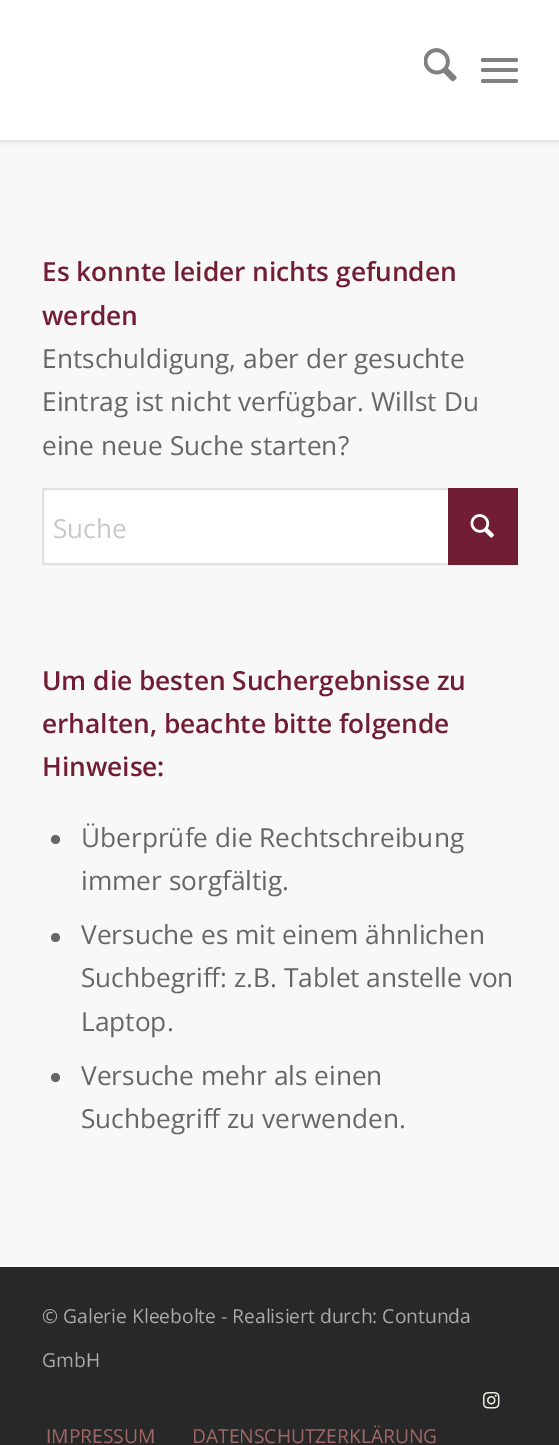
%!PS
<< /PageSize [559 1445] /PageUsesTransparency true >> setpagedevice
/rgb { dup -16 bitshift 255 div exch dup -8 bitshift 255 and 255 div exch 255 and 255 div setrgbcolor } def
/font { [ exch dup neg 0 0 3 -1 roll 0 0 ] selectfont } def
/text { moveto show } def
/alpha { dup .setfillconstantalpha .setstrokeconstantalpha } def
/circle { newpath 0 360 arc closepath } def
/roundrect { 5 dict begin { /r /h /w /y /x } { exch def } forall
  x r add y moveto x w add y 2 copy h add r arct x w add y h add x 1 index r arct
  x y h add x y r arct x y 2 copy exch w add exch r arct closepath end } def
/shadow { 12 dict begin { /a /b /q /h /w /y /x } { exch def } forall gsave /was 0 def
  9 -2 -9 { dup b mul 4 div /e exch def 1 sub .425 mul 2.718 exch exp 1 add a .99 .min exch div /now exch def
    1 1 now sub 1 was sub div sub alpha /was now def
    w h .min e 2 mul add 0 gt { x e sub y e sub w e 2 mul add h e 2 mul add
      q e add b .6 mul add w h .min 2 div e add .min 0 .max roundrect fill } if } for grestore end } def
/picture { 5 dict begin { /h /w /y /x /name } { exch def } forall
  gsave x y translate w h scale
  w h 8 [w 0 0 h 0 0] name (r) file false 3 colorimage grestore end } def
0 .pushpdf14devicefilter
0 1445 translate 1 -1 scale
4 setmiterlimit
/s1 { /OpenSans-SemiBold 26.25 font 16#711D33 rgb } def
/s2 { /OpenSans-Regular 26.25 font 16#666666 rgb } def
/s3 { /OpenSans-Regular 26.25 font 16#C8C8C8 rgb } def
/s4 { /OpenSans-Regular 19.25 font 16#AAAAAA rgb } def
/s5 { /OpenSans-Regular 19.25 font 16#A06767 rgb } def
16#F8F8F8 rgb
0 0 559 1445 rectfill
16#000000 rgb
-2 -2 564 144 0 2 0.1 shadow
16#FFFFFF rgb
0 0 559 140 rectfill
(pic1.raw) 424 48 33 34 picture
16#808080 rgb
481 68 37 4 2 roundrect fill
481 58 37 4 2 roundrect fill
481 79 37 4 2 roundrect fill
s1
(Es konnte leider nichts gefunden) 42 281 text
(werden) 42 325 text
s2
(Entschuldigung, aber der gesuchte) 42 368 text
(Eintrag ist nicht verfügbar. Willst Du) 42 411 text
(eine neue Suche starten?) 42 455 text
16#FFFFFF rgb
44 490 404 73 rectfill
16#E1E1E1 rgb
2 setlinewidth
43 489 474 75 rectstroke
16#711D33 rgb
448 488 70 77 rectfill
s3
(Suche) 53 538 text
(pic2.raw) 470 514 24 24 picture
s1
(Um die besten Suchergebnisse zu) 42 690 text
(erhalten, beachte bitte folgende) 42 733 text
(Hinweise:) 42 776 text
16#666666 rgb
55.5 839.5 4.5 circle fill
s2
(Überprüfe die Rechtschreibung) 81 847 text
(immer sorgfältig.) 81 890 text
55.5 937.5 4.5 circle fill
(Versuche es mit einem ähnlichen) 81 944 text
(Suchbegriff: z.B. Tablet anstelle von) 81 987 text
(Laptop.) 81 1031 text
55.5 1077.5 4.5 circle fill
(Versuche mehr als einen) 81 1085 text
(Suchbegriff zu verwenden.) 81 1128 text
16#282828 rgb
0 1267 559 178 rectfill
s4
(© Galerie Kleebolte - Realisiert durch: Contunda) 42 1323 text
(GmbH) 42 1367 text
(pic3.raw) 483 1392 17 17 picture
s5
(IMPRESSUM) 46 1443 text
(DATENSCHUTZERKLÄRUNG) 192 1443 text
.poppdf14devicefilter showpage
